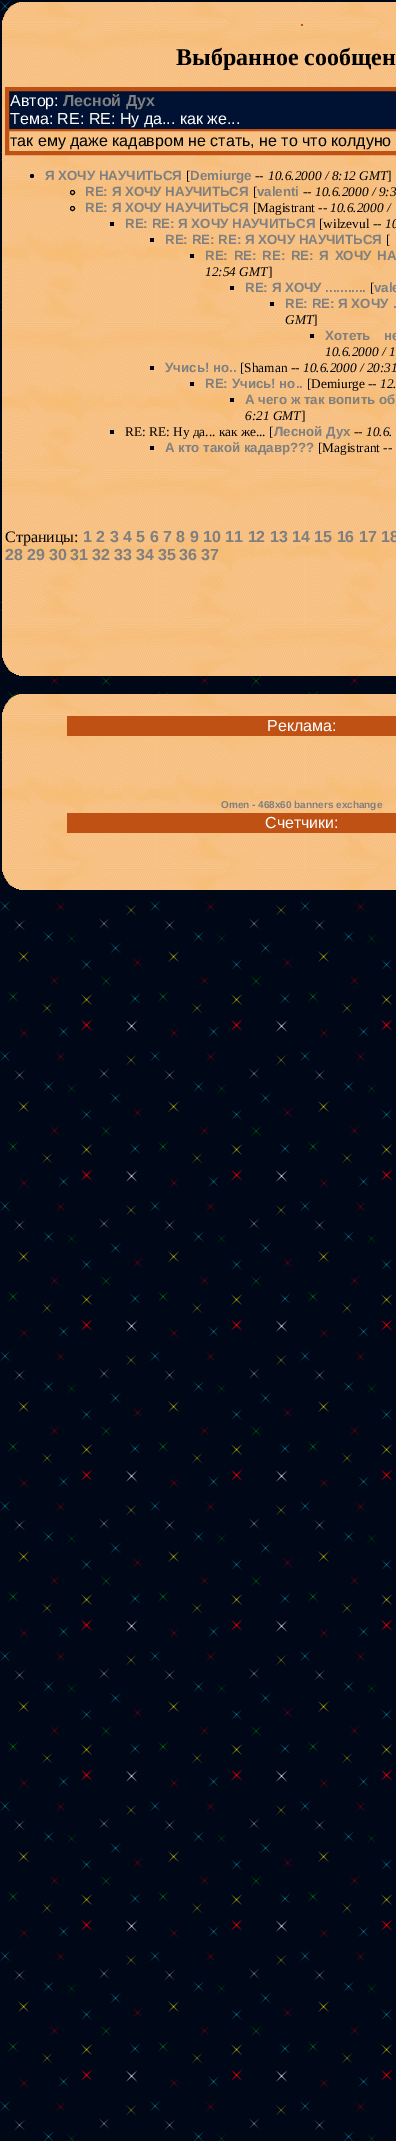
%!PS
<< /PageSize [396 2141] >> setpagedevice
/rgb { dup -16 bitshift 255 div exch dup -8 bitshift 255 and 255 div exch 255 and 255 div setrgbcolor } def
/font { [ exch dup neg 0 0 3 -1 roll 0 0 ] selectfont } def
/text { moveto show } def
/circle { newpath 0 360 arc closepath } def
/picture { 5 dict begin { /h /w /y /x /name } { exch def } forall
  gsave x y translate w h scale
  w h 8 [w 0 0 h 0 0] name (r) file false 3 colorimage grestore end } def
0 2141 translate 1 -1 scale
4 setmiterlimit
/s1 { /LiberationSerif-Bold 24 font 16#000000 rgb } def
/s2 { /LiberationSans-Regular 16 font 16#FFFFFF rgb } def
/s3 { /LiberationSans-Bold 16 font 16#7F7F7F rgb } def
/s4 { /LiberationSans-Regular 16 font 16#000000 rgb } def
/s5 { /LiberationSans-Bold 13.3 font 16#7F7F7F rgb } def
/s6 { /LiberationSerif-Regular 13.3 font 16#000000 rgb } def
/s7 { /LiberationSerif-Italic 13.3 font 16#000000 rgb } def
/s8 { /LiberationSerif-Regular 16 font 16#000000 rgb } def
/s9 { /LiberationSans-Bold 10 font 16#7F7F7F rgb } def
16#FFFFFF rgb
0 0 396 2141 rectfill
(pic1.raw) 0 0 396 2141 picture
(pic2.raw) 2 2 394 20 picture
(pic3.raw) 2 22 3 448 picture
(pic4.raw) 5 22 391 448 picture
16#C05115 rgb
301 24 2 2 rectfill
s1
(Выбранное сообщен) 176 65 text
16#C05115 rgb
3 setlinewidth
6.5 88.5 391 65 rectstroke
16#001233 rgb
8.5 90.5 moveto 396.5 90.5 lineto 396.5 129.5 lineto 8.5 129.5 lineto closepath gsave fill grestore
16#C05115 rgb
1 setlinewidth
stroke
s2
(Автор:) 10 106 text
s3
(Лесной Дух) 63 106 text
s2
(Тема: RE: RE: Ну да... как же...) 10 124 text
16#C05115 rgb
8.5 130.5 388 21 rectstroke
s4
(так ему даже кадавром не стать, не то что колдуно) 10 146 text
32 176 2 circle fill
s5
(Я ХОЧУ НАУЧИТЬСЯ) 45 180 text
s6
([) 186 180 text
s5
(Demiurge) 190 180 text
s6
(--) 255 180 text
s7
(10.6.2000 / 8:12 GMT) 268 180 text
s6
(]) 387 180 text
72.5 192.5 2 circle stroke
s5
(RE: Я ХОЧУ НАУЧИТЬСЯ) 85 196 text
s6
([) 253 196 text
s5
(valenti) 257 196 text
s6
(--) 303 196 text
s7
(10.6.2000 / 9:3) 315 196 text
72.5 208.5 2 circle stroke
s5
(RE: Я ХОЧУ НАУЧИТЬСЯ) 85 212 text
s6
([Magistrant --) 253 212 text
s7
(10.6.2000 /) 330 212 text
110 222 4 4 rectfill
s5
(RE: RE: Я ХОЧУ НАУЧИТЬСЯ) 125 228 text
s6
([wilzevul --) 319 228 text
s7
(10) 385 228 text
150 238 4 4 rectfill
s5
(RE: RE: RE: Я ХОЧУ НАУЧИТЬСЯ) 165 244 text
s6
([) 386 244 text
190 254 4 4 rectfill
/LiberationSans-Bold 13.3 font
16#7F7F7F rgb
205 260 moveto 2 0 32 (RE: RE: RE: RE: Я ХОЧУ НА) widthshow
s7
(12:54 GMT) 205 276 text
s6
(]) 268 276 text
230 286 4 4 rectfill
s5
(RE: Я ХОЧУ ...........) 245 292 text
s6
([) 370 292 text
s5
(vale) 374 292 text
16#000000 rgb
270 302 4 4 rectfill
s5
(RE: RE: Я ХОЧУ) 285 308 text
(.) 393 308 text
s7
(GMT) 285 324 text
s6
(]) 313 324 text
310 334 4 4 rectfill
/LiberationSans-Bold 13.3 font
16#7F7F7F rgb
325 340 moveto 10 0 32 (Хотеть не) widthshow
s7
(10.6.2000 / 1) 325 356 text
150 366 4 4 rectfill
s5
(Учись! но..) 165 372 text
s6
([Shaman --) 240 372 text
s7
(10.6.2000 / 20:31) 303 372 text
190 382 4 4 rectfill
s5
(RE: Учись! но..) 205 388 text
s6
([Demiurge --) 307 388 text
s7
(12.) 380 388 text
230 398 4 4 rectfill
s5
(А чего ж так вопить об) 245 404 text
s7
(6:21 GMT) 245 420 text
s6
(]) 301 420 text
110 430 4 4 rectfill
(RE: RE: Ну да... как же... [) 125 436 text
s5
(Лесной Дух) 274 436 text
s6
(--) 354 436 text
s7
(10.6.) 366 436 text
150 446 4 4 rectfill
s5
(А кто такой кадавр???) 165 452 text
s6
([Magistrant --) 318 452 text
(pic5.raw) 2 470 3 186 picture
(pic6.raw) 5 470 391 186 picture
s8
(Страницы:) 5 542 text
s3
(1 2 3 4 5 6 7 8 9 10 11 12 13 14 15 16 17 18) 83 542 text
(28) 5 560 text
(29) 27 560 text
(30) 49 560 text
(31) 70 560 text
(32) 92 560 text
(33) 114 560 text
(34) 136 560 text
(35) 158 560 text
(36) 179 560 text
(37) 201 560 text
(pic7.raw) 2 656 394 20 picture
(pic8.raw) 2 694 394 20 picture
(pic9.raw) 2 714 3 156 picture
(pic10.raw) 5 714 391 156 picture
16#C05115 rgb
67 716 329 20 rectfill
s2
(Реклама:) 267 731 text
s9
(Omen - 468x60 banners exchange) 221 808 text
16#C05115 rgb
67 813 329 20 rectfill
s2
(Счетчики:) 265 828 text
(pic7.raw) 2 870 394 20 picture
showpage
